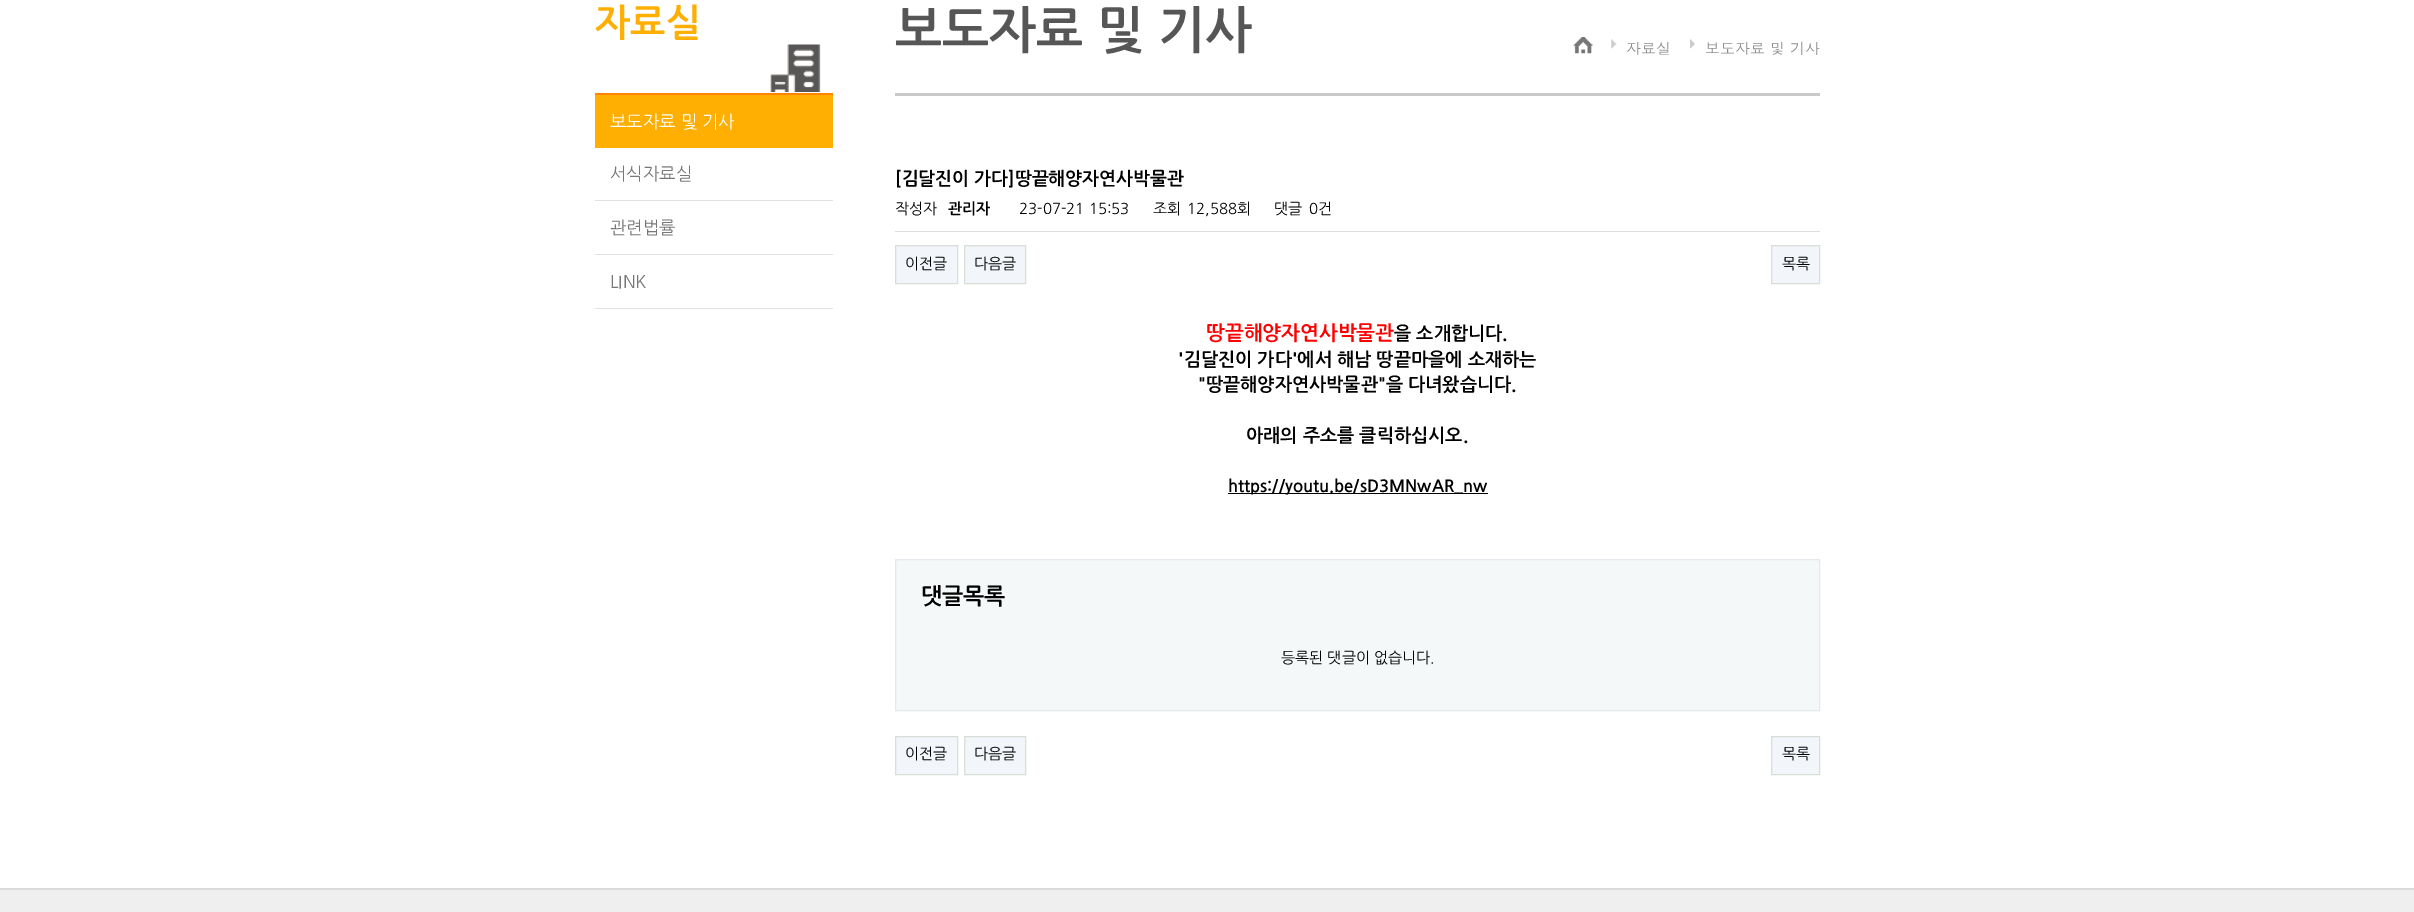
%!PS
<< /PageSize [2414 912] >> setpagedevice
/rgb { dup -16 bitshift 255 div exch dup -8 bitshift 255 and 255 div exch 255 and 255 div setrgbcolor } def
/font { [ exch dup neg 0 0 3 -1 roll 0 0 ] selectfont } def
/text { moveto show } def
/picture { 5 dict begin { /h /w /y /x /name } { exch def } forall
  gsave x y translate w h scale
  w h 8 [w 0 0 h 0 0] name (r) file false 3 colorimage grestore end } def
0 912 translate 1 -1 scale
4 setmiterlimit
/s1 { /NanumGothic-Bold 37.5 font 16#FFAE02 rgb } def
/s2 { /NanumGothic-Regular 17.5 font 16#FFFFFF rgb } def
/s3 { /NanumGothic-Regular 17.5 font 16#777777 rgb } def
/s4 { /NanumGothic-Bold 50 font 16#565656 rgb } def
/s5 { /Dotum-Regular 15 font 16#8D8D8D rgb } def
/s6 { /NanumGothic-Bold 18 font 16#000000 rgb } def
/s7 { /NanumGothic-Regular 15 font 16#000000 rgb } def
/s8 { /NanumGothic-Bold 15 font 16#000000 rgb } def
/s9 { /NanumGothic-Bold 20 font 16#FF0000 rgb } def
/s10 { /NanumGothic-Bold 18.3 font 16#000000 rgb } def
/s11 { /NanumGothic-Bold 16.7 font 16#000000 rgb } def
/s12 { /NanumGothic-Bold 22.5 font 16#000000 rgb } def
16#FFFFFF rgb
0 0 2414 912 rectfill
(pic1.raw) 770 44 51 48 picture
16#FF8500 rgb
595 93 238 2 rectfill
s1
(자료실) 595 36 text
595 95 238 53 rectfill
s2
(보도자료 및 기사) 610 128 text
16#E1E1E1 rgb
595 200 238 1 rectfill
s3
(서식자료실) 610 180 text
16#E1E1E1 rgb
595 254 238 1 rectfill
s3
(관련법률) 610 234 text
16#E1E1E1 rgb
595 308 238 1 rectfill
s3
(LINK) 610 288 text
16#CACACA rgb
895 93 925 3 rectfill
s4
(보도자료 및 기사) 895 48 text
(pic2.raw) 1573 37 20 17 picture
(pic3.raw) 1611 39 6 10 picture
s5
(자료실) 1626 54 text
(pic4.raw) 1690 39 5 10 picture
(보도자료 및 기사) 1705 54 text
s6
([김달진이 가다]땅끝해양자연사박물관) 895 185 text
16#DDDDDD rgb
895 231 925 1 rectfill
s7
(작성자) 895 214 text
s8
(관리자) 948 214 text
s7
(23-07-21 15:53) 1019 214 text
(조회) 1153 214 text
(12,588회) 1187 214 text
(댓글) 1274 214 text
(0건) 1309 214 text
16#F2F5F9 rgb
895.5 245.5 moveto 957.5 245.5 lineto 957.5 283.5 lineto 895.5 283.5 lineto closepath gsave fill grestore
16#D9DED9 rgb
stroke
s7
(이전글) 905 269 text
16#F2F5F9 rgb
964.5 245.5 moveto 1025.5 245.5 lineto 1025.5 283.5 lineto 964.5 283.5 lineto closepath gsave fill grestore
16#D9DED9 rgb
stroke
s7
(다음글) 974 269 text
16#F2F5F9 rgb
1771.5 245.5 moveto 1819.5 245.5 lineto 1819.5 283.5 lineto 1771.5 283.5 lineto closepath gsave fill grestore
16#D9DED9 rgb
stroke
s7
(목록) 1782 269 text
s9
(땅끝해양자연사박물관) 1206 340 text
s10
(을 소개합니다.) 1394 340 text
('김달진이 가다'에서 해남 땅끝마을에 소재하는) 1178 366 text
("땅끝해양자연사박물관"을 다녀왔습니다.) 1198 391 text
(아래의 주소를 클릭하십시오.) 1246 442 text
1228 493 260 1 rectfill
s11
(https://youtu.be/sD3MNwAR_nw) 1228 492 text
16#F5F8F9 rgb
895.5 559.5 moveto 1819.5 559.5 lineto 1819.5 710.5 lineto 895.5 710.5 lineto closepath gsave fill grestore
16#E5E8EC rgb
stroke
s12
(댓글목록) 921 604 text
s7
(등록된 댓글이 없습니다.) 1281 663 text
16#F2F5F9 rgb
895.5 736.5 moveto 957.5 736.5 lineto 957.5 774.5 lineto 895.5 774.5 lineto closepath gsave fill grestore
16#D9DED9 rgb
stroke
s7
(이전글) 905 759 text
16#F2F5F9 rgb
964.5 736.5 moveto 1025.5 736.5 lineto 1025.5 774.5 lineto 964.5 774.5 lineto closepath gsave fill grestore
16#D9DED9 rgb
stroke
s7
(다음글) 974 759 text
16#F2F5F9 rgb
1771.5 736.5 moveto 1819.5 736.5 lineto 1819.5 774.5 lineto 1771.5 774.5 lineto closepath gsave fill grestore
16#D9DED9 rgb
stroke
s7
(목록) 1782 759 text
16#DADADA rgb
0 888 2414 2 rectfill
16#EFEFEF rgb
0 890 2414 22 rectfill
showpage
